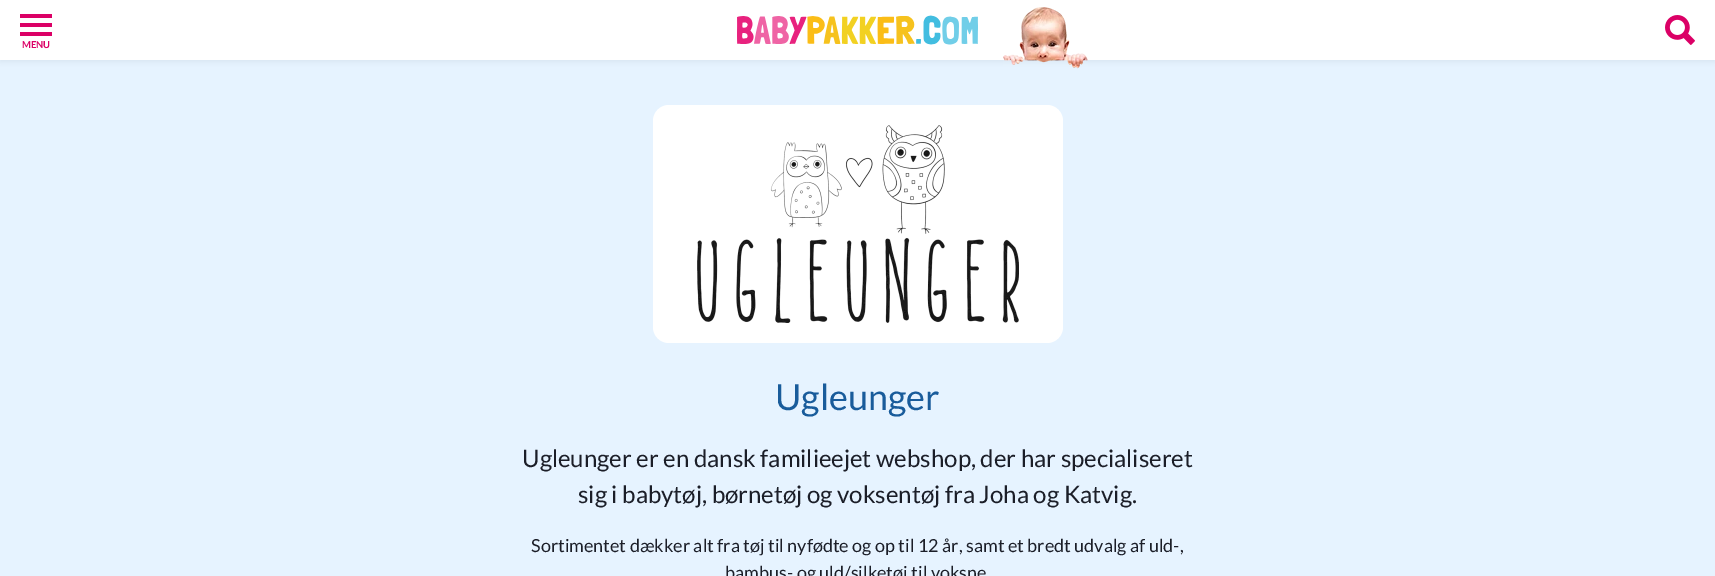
%!PS
<< /PageSize [1715 576] /PageUsesTransparency true >> setpagedevice
/rgb { dup -16 bitshift 255 div exch dup -8 bitshift 255 and 255 div exch 255 and 255 div setrgbcolor } def
/font { [ exch dup neg 0 0 3 -1 roll 0 0 ] selectfont } def
/text { moveto show } def
/alpha { dup .setfillconstantalpha .setstrokeconstantalpha } def
/roundrect { 5 dict begin { /r /h /w /y /x } { exch def } forall
  x r add y moveto x w add y 2 copy h add r arct x w add y h add x 1 index r arct
  x y h add x y r arct x y 2 copy exch w add exch r arct closepath end } def
/shadow { 12 dict begin { /a /b /q /h /w /y /x } { exch def } forall gsave /was 0 def
  9 -2 -9 { dup b mul 4 div /e exch def 1 sub .425 mul 2.718 exch exp 1 add a .99 .min exch div /now exch def
    1 1 now sub 1 was sub div sub alpha /was now def
    w h .min e 2 mul add 0 gt { x e sub y e sub w e 2 mul add h e 2 mul add
      q e add b .6 mul add w h .min 2 div e add .min 0 .max roundrect fill } if } for grestore end } def
/picture { 5 dict begin { /h /w /y /x /name } { exch def } forall
  gsave x y translate w h scale
  w h 8 [w 0 0 h 0 0] name (r) file false 3 colorimage grestore end } def
0 .pushpdf14devicefilter
0 576 translate 1 -1 scale
4 setmiterlimit
/s1 { /Lato-Bold 9.5 font 16#DB0066 rgb } def
/s2 { /Lato-Regular 36 font 16#195C9B rgb } def
/s3 { /Lato-Regular 24 font 16#1B1E28 rgb } def
/s4 { /Lato-Regular 18 font 16#1B1E28 rgb } def
16#E6F3FF rgb
0 0 1715 576 rectfill
16#000000 rgb
0 2 1715 60 0 3 0.05 shadow
16#FFFFFF rgb
0 0 1715 60 rectfill
16#DB0066 rgb
20 14 32 4 rectfill
20 23 32 4 rectfill
20 32 32 4 rectfill
s1
(MENU) 22 48 text
(pic1.raw) 737 15 241 30 picture
(pic2.raw) 1003 7 85 62 picture
(pic3.raw) 1665 15 30 30 picture
16#FFFFFF rgb
653 105 410 238 16 roundrect fill
(pic4.raw) 697 125 322 198 picture
s2
(Ugleunger) 775 410 text
s3
(Ugleunger er en dansk familieejet webshop, der har specialiseret) 522 467 text
(sig i babytøj, børnetøj og voksentøj fra Joha og Katvig.) 578 503 text
s4
(Sortimentet dækker alt fra tøj til nyfødte og op til 12 år, samt et bredt udvalg af uld-,) 531 552 text
(bambus- og uld/silketøj til voksne) 725 579 text
.poppdf14devicefilter showpage
